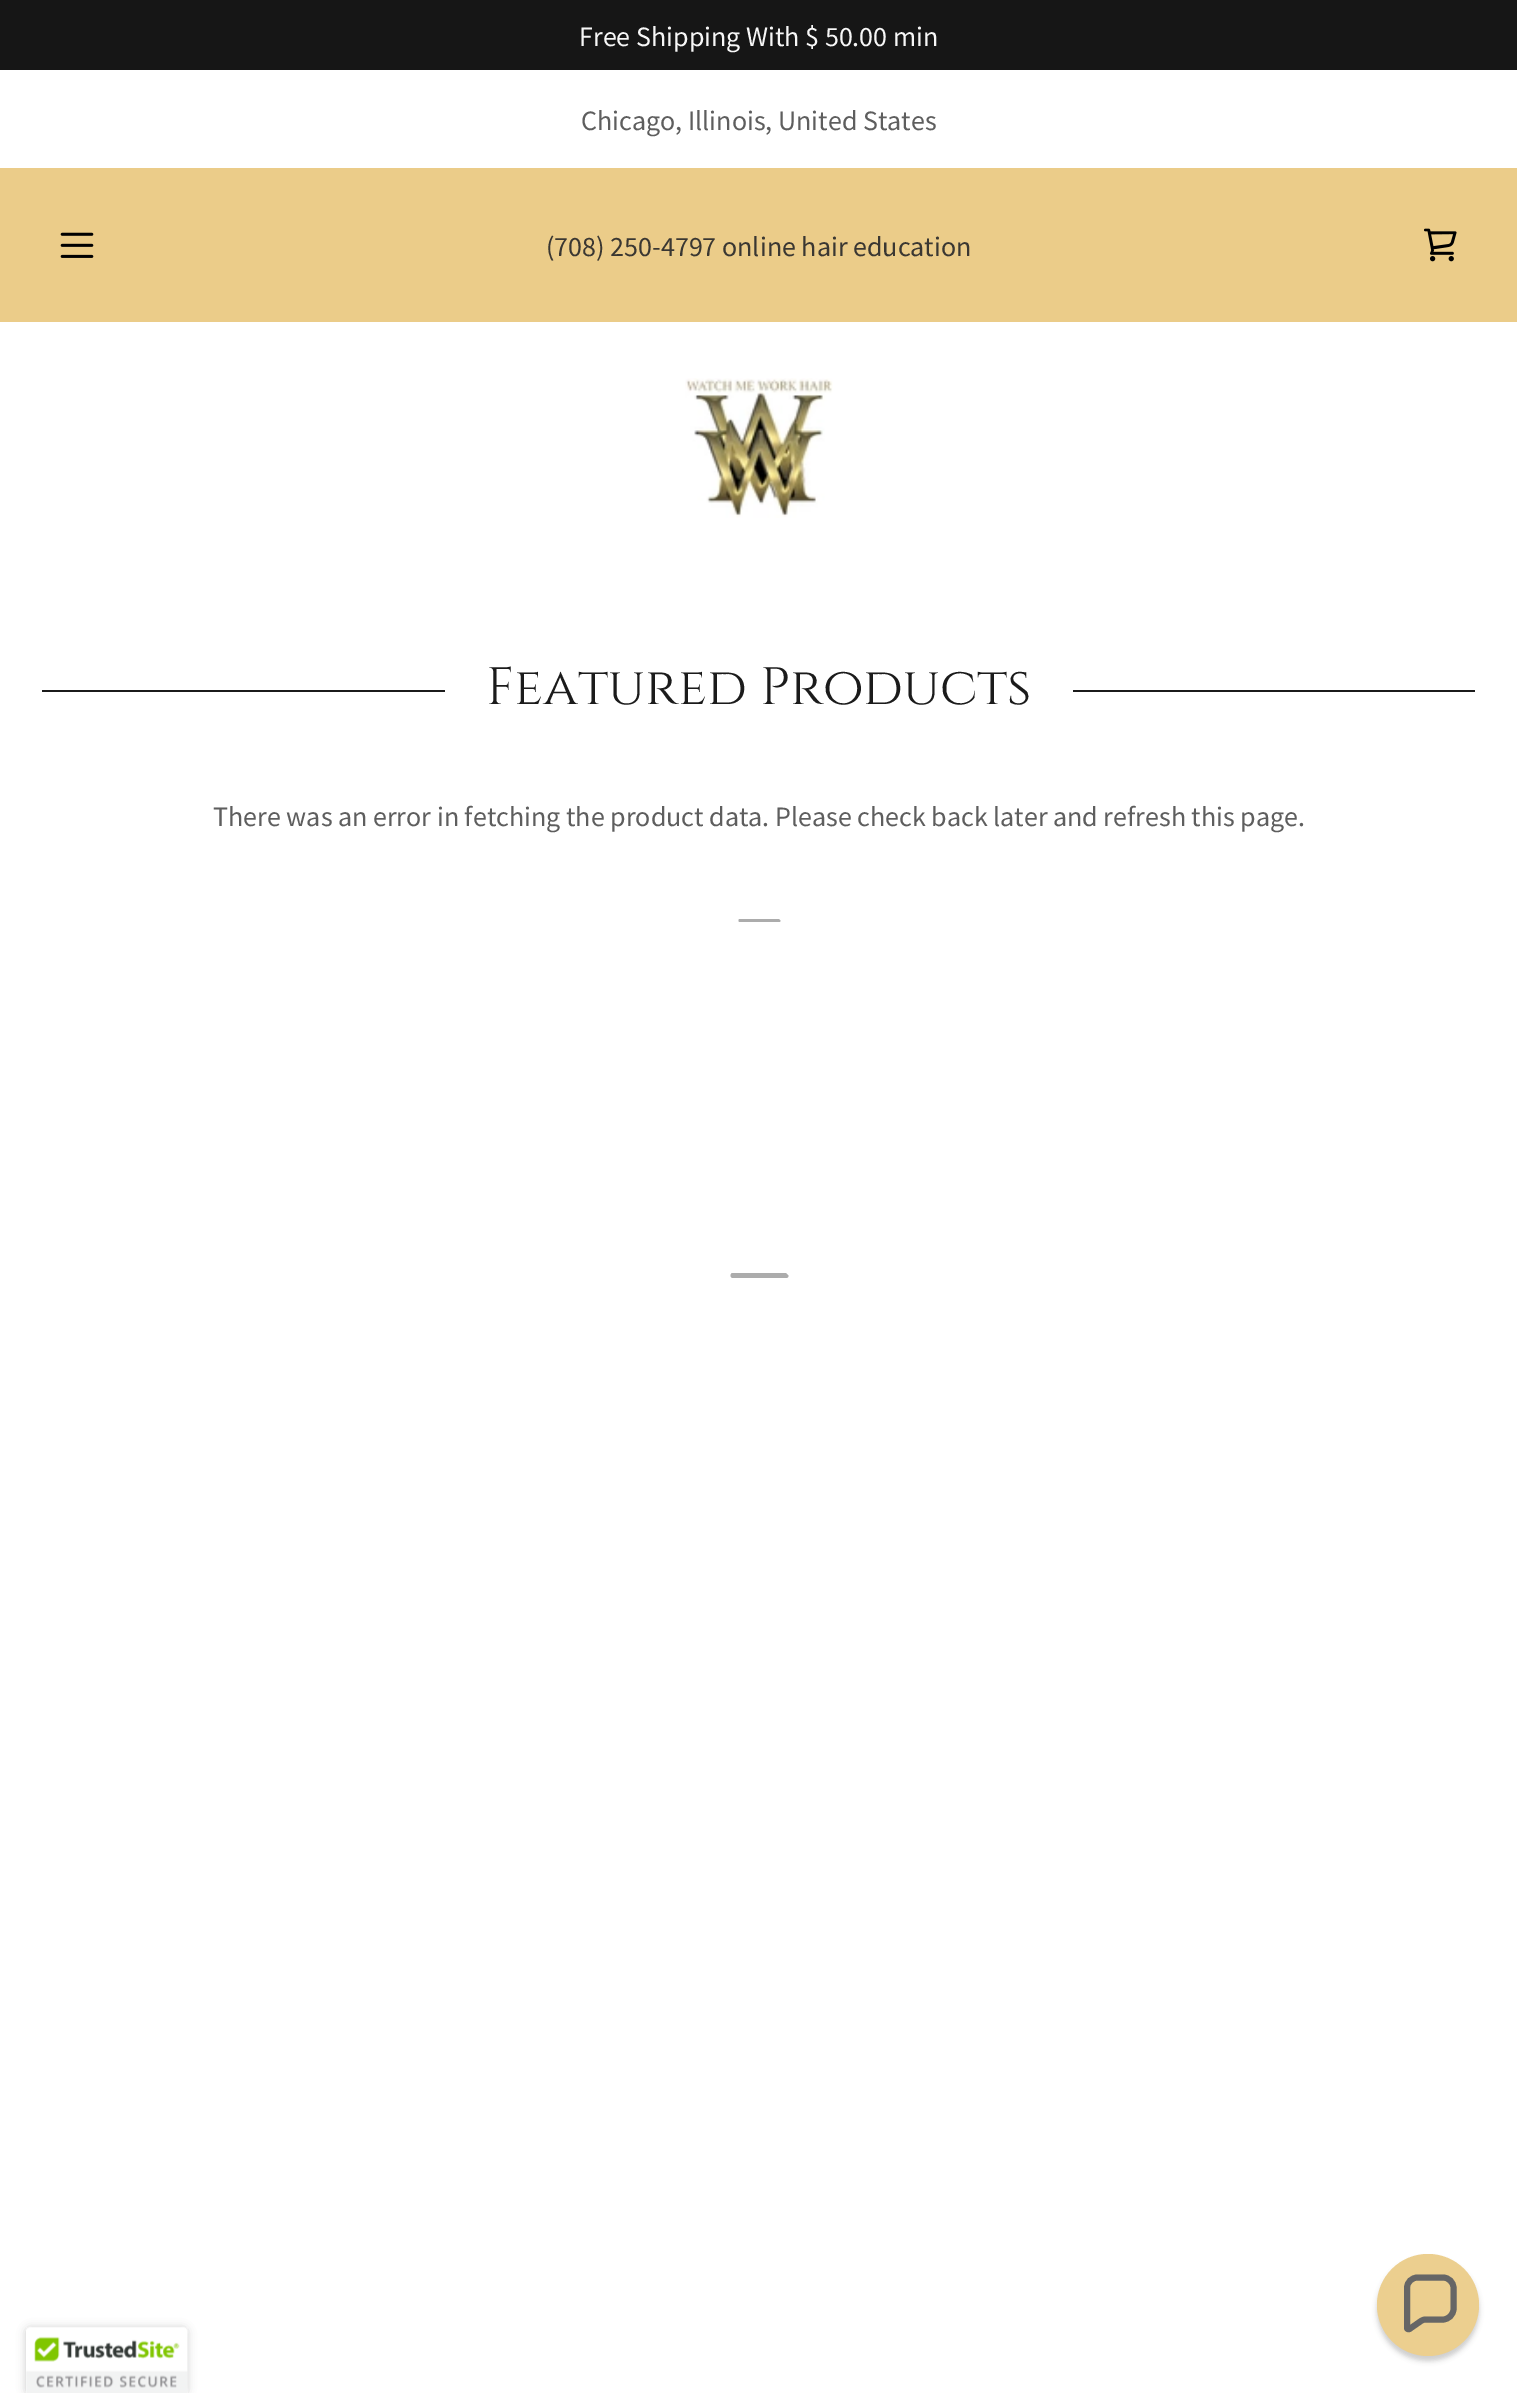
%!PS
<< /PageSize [1517 2393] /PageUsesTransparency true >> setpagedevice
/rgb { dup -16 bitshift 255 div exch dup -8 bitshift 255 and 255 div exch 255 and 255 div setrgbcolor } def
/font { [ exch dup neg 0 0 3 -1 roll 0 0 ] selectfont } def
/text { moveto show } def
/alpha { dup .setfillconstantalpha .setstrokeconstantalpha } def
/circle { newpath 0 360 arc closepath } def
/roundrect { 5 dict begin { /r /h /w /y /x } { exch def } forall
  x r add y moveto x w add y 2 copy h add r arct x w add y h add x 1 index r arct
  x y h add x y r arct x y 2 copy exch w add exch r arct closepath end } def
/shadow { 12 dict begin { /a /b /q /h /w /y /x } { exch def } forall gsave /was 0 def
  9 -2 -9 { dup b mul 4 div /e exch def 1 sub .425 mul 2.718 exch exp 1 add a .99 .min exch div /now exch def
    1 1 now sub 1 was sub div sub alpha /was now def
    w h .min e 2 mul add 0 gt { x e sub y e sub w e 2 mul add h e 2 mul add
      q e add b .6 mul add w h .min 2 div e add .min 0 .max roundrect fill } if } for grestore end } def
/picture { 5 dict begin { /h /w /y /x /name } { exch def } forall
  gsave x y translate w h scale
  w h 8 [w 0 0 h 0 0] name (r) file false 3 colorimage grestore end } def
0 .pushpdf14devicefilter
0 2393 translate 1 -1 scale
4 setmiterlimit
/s1 { /SourceSansPro-Regular 28 font 16#F7F7F7 rgb } def
/s2 { /SourceSansPro-Regular 28 font 16#5E5E5E rgb } def
/s3 { /SourceSansPro-Regular 28 font 16#3A3732 rgb } def
/s4 { /Cinzel-Regular 52.5 font 16#1B1B1B rgb } def
16#FFFFFF rgb
0 0 1517 2393 rectfill
16#161616 rgb
0 0 1517 70 rectfill
s1
(Free Shipping With $ 50.00 min) 579 46 text
s2
(Chicago, Illinois, United States) 581 130 text
16#EBCC89 rgb
0 168 1517 154 rectfill
(pic1.raw) 60 232 34 26 picture
s3
(\(708\) 250-4797 online hair education) 546 256 text
(pic2.raw) 1424 228 33 34 picture
(pic3.raw) 685 378 148 140 picture
16#1B1B1B rgb
42 690 403 2 rectfill
s4
(Featured Products) 486 704 text
1073 690 402 2 rectfill
s2
(There was an error in fetching the product data. Please check back later and refresh this page.) 213 826 text
16#ACACAC rgb
779 922 moveto 740 922 lineto 738 922 738 919 740 919 curveto 779 919 lineto 780 920 lineto 781 921 780 922 779 922 curveto eofill
786 1278 moveto 733 1278 lineto 730 1278 730 1274 732 1273 curveto 786 1273 lineto 788 1275 lineto 789 1276 788 1278 786 1278 curveto eofill
16#000000 rgb
26 2328 161 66 4 4.5 0.2 shadow
(pic4.raw) 26 2327 162 66 picture
16#0D0D0D rgb
1377 2259 102 102 51 2.5 0.2 shadow
16#ECCF8F rgb
1428 2305 51 circle fill
16#666666 rgb
5.9 setlinewidth
1443 2277.5 moveto 1417.5 2277.5 lineto 1412 2277.5 1407 2282 1407 2288 curveto 1407 2328 lineto 1407 2329 1408.5 2329.5 1409.5 2329 curveto 1421 2321 lineto 1422.5 2320 1424 2319.5 1425.5 2319.5 curveto 1443 2319.5 lineto 1448.5 2319.5 1453.5 2314.5 1453.5 2309 curveto 1453.5 2288 lineto 1453.5 2282 1448.5 2277.5 1443 2277.5 curveto closepath stroke
.poppdf14devicefilter showpage
